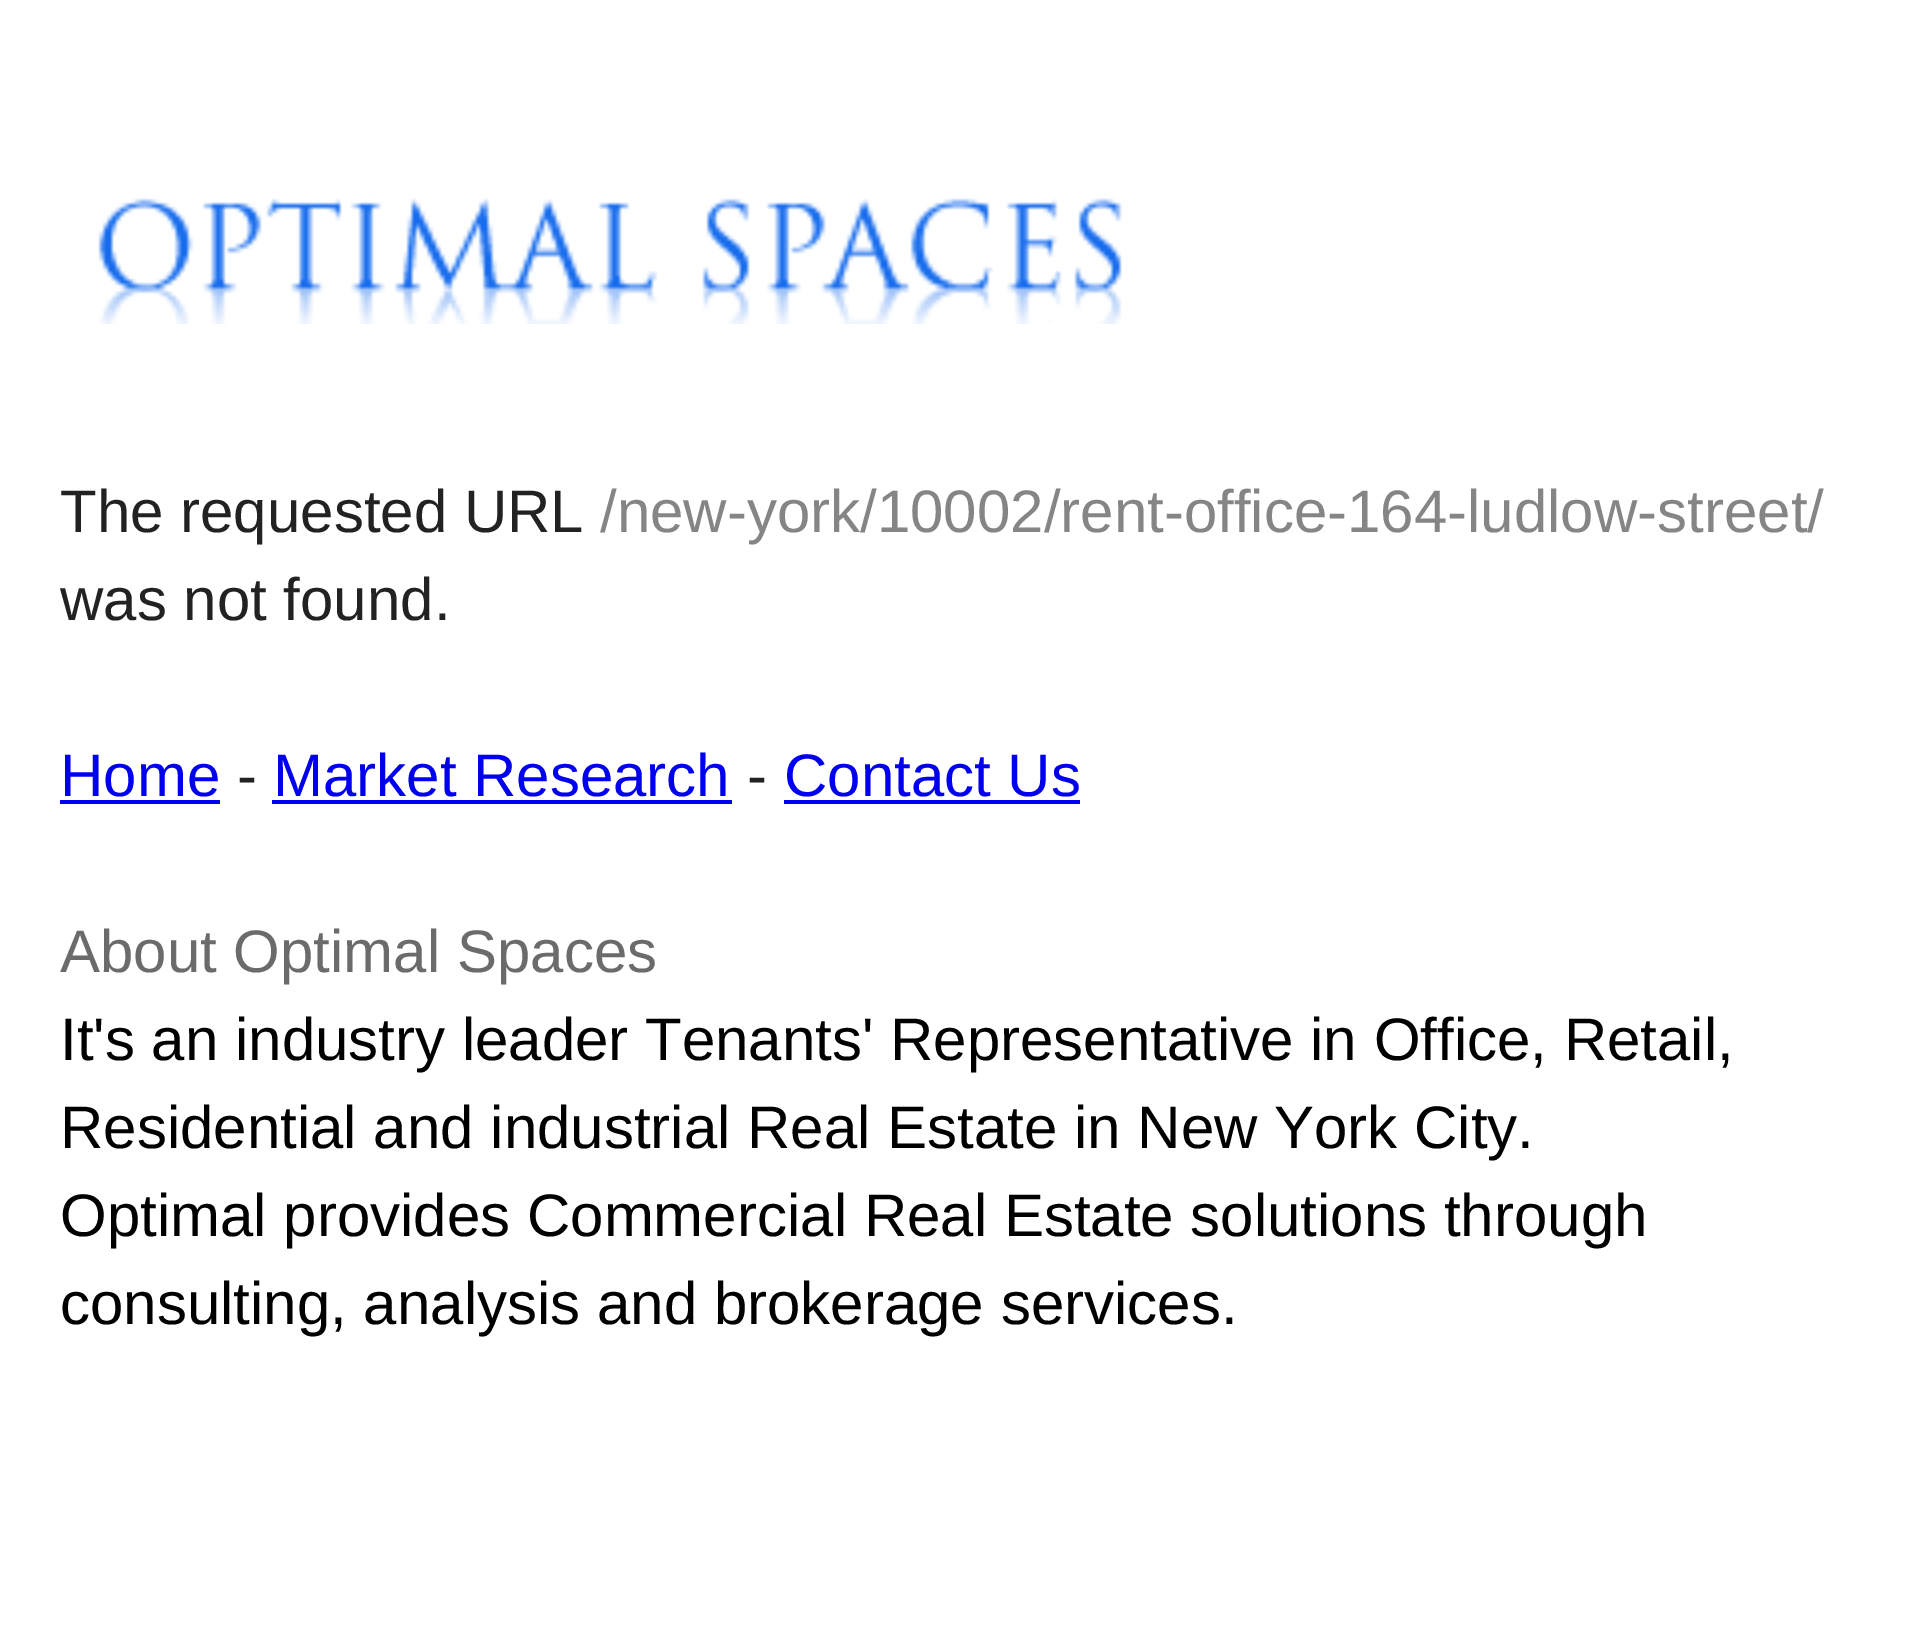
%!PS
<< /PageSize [1928 1646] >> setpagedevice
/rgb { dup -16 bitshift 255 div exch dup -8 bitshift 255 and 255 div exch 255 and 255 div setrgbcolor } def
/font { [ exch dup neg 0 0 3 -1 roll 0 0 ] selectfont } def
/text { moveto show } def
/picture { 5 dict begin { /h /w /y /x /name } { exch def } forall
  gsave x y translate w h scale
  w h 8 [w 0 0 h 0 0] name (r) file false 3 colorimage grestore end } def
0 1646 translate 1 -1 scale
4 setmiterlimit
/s1 { /LiberationSans-Regular 60 font 16#222222 rgb } def
/s2 { /LiberationSans-Regular 60 font 16#858585 rgb } def
/s3 { /LiberationSans-Regular 60 font 16#0000EE rgb } def
/s4 { /LiberationSans-Regular 60 font 16#6B6B6B rgb } def
/s5 { /LiberationSans-Regular 60 font 16#000000 rgb } def
16#FFFFFF rgb
0 0 1928 1646 rectfill
(pic1.raw) 98 198 1024 126 picture
s1
(The requested URL) 60 532 text
s2
(/new-york/10002/rent-office-164-ludlow-street/) 600 532 text
s1
(was not found.) 60 620 text
s3
(Home) 60 796 text
60 800 160 4 rectfill
s1
(-) 237 796 text
s3
(Market Research) 273 796 text
272 800 460 4 rectfill
s1
(-) 747 796 text
s3
(Contact Us) 784 796 text
784 800 296 4 rectfill
s4
(About Optimal Spaces) 60 972 text
s5
(It's an industry leader Tenants' Representative in Office, Retail,) 60 1060 text
(Residential and industrial Real Estate in New York City.) 60 1148 text
(Optimal provides Commercial Real Estate solutions through) 60 1236 text
(consulting, analysis and brokerage services.) 60 1324 text
showpage
